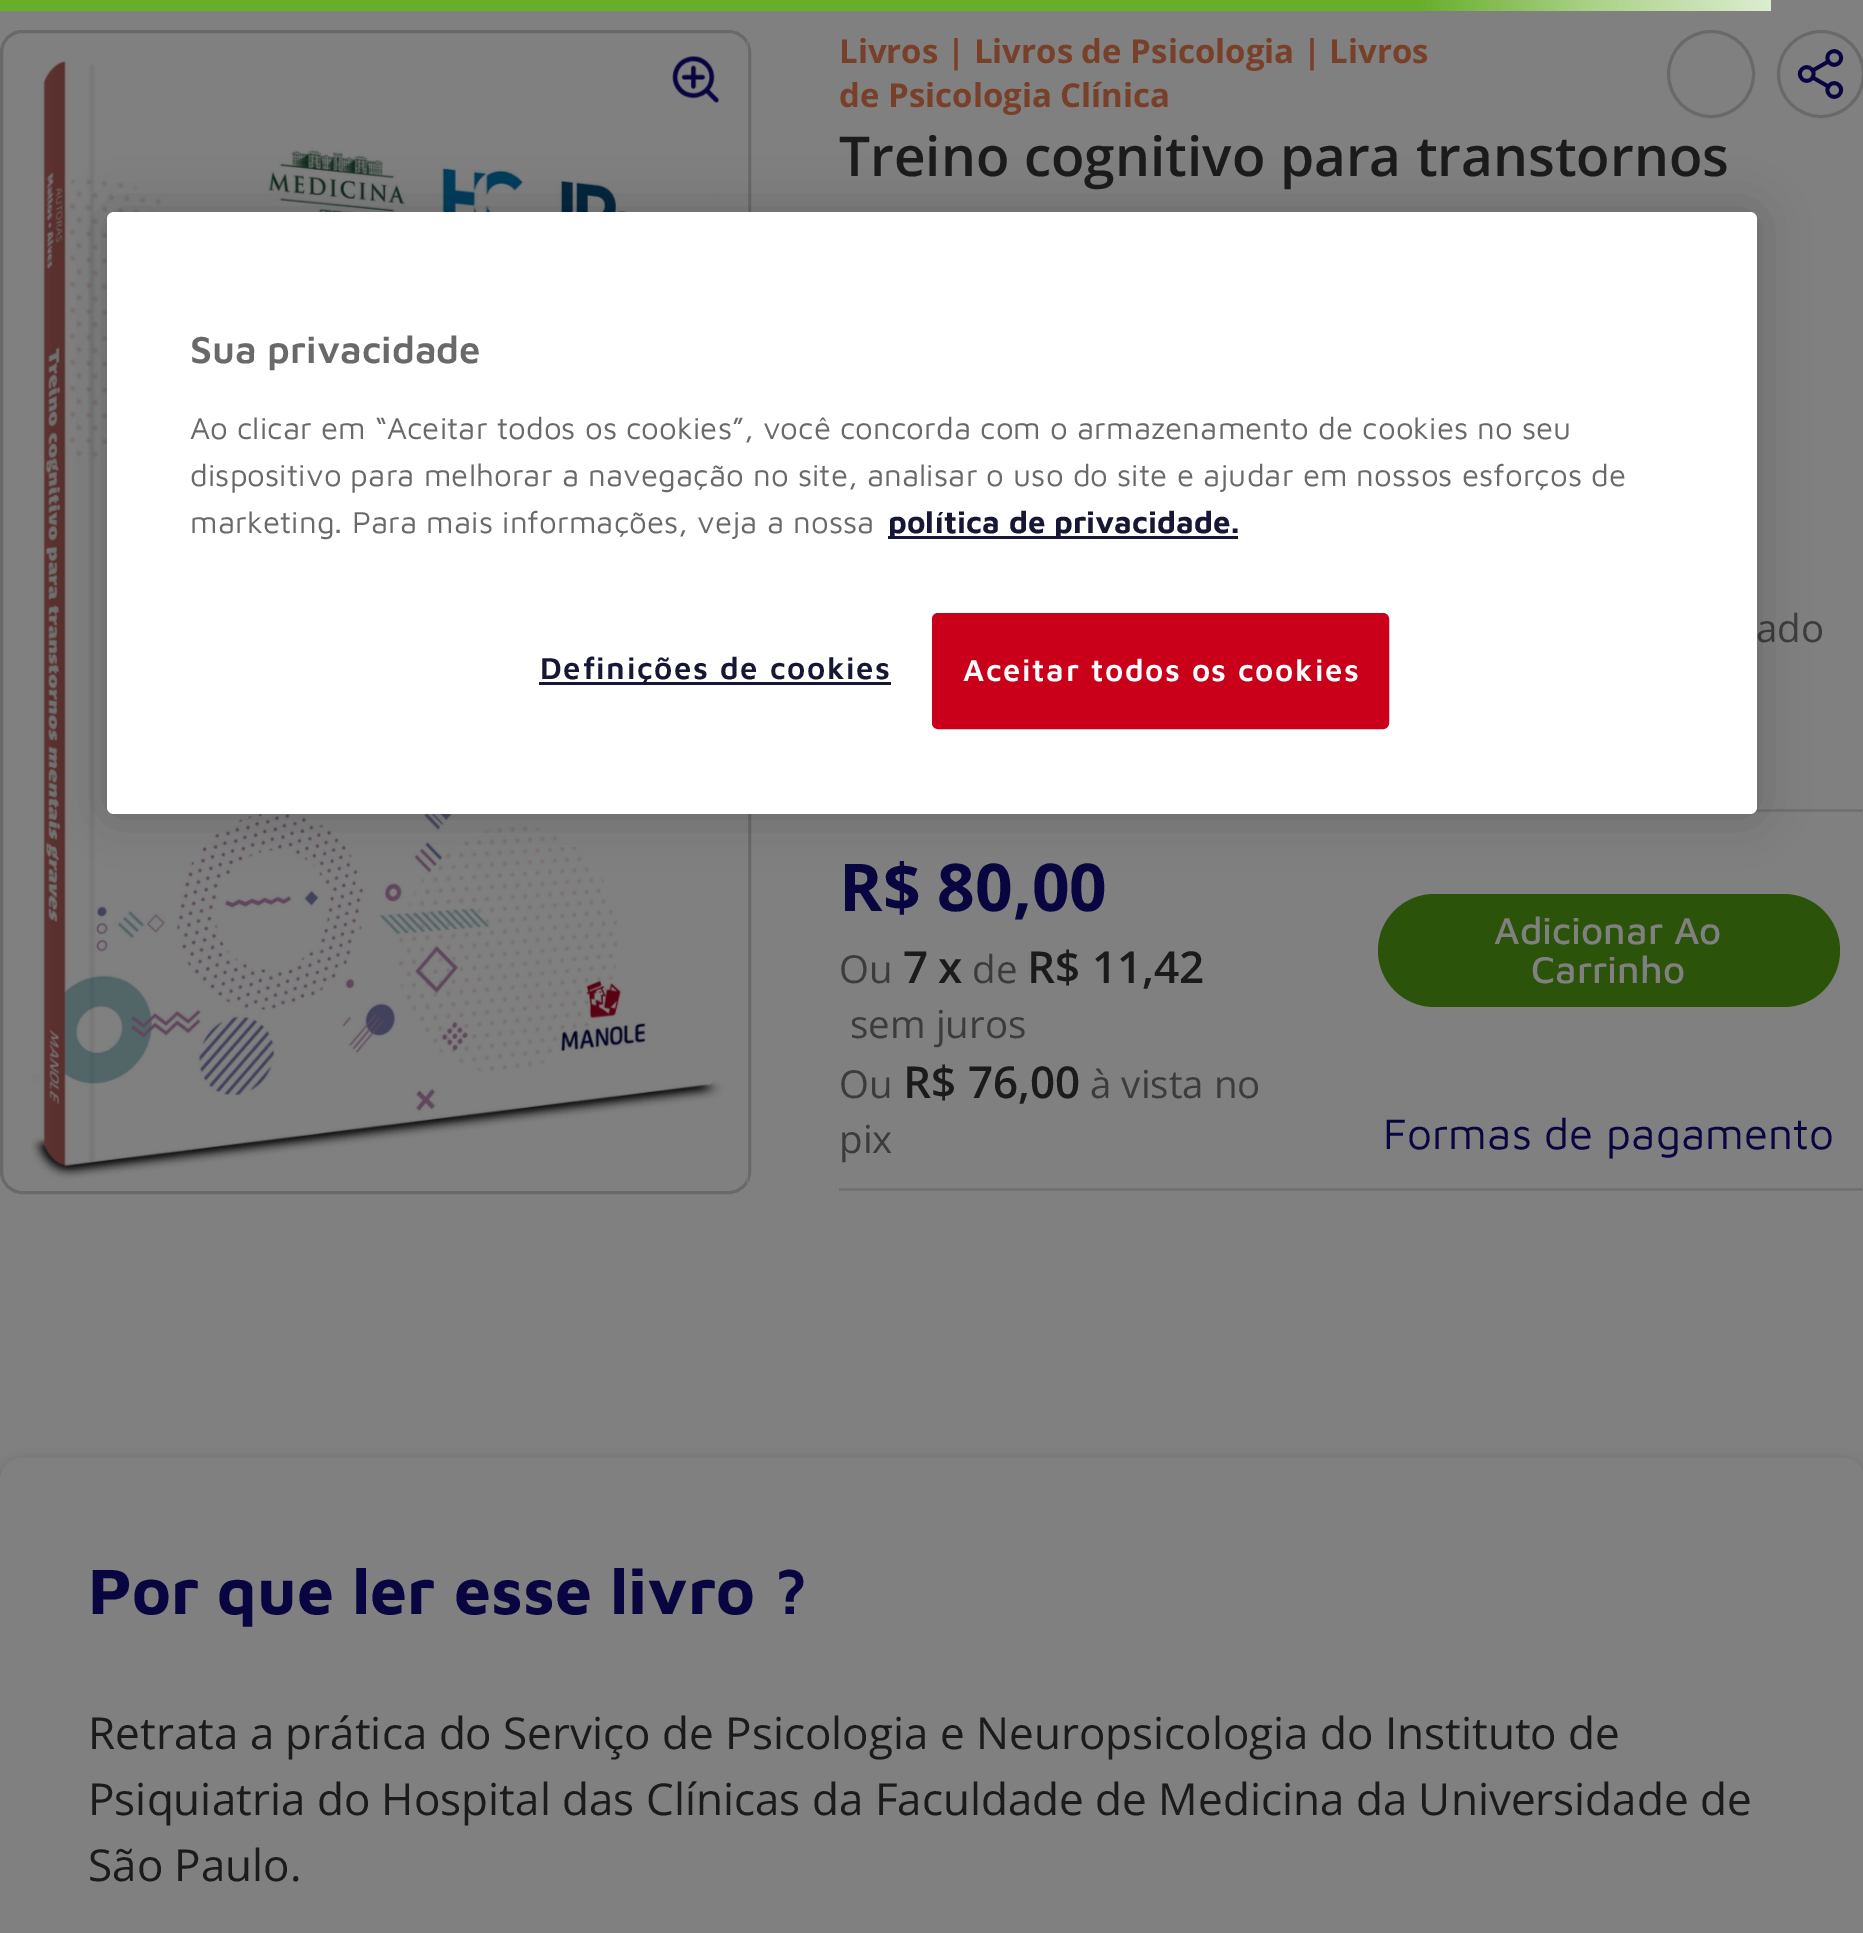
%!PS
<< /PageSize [1863 1933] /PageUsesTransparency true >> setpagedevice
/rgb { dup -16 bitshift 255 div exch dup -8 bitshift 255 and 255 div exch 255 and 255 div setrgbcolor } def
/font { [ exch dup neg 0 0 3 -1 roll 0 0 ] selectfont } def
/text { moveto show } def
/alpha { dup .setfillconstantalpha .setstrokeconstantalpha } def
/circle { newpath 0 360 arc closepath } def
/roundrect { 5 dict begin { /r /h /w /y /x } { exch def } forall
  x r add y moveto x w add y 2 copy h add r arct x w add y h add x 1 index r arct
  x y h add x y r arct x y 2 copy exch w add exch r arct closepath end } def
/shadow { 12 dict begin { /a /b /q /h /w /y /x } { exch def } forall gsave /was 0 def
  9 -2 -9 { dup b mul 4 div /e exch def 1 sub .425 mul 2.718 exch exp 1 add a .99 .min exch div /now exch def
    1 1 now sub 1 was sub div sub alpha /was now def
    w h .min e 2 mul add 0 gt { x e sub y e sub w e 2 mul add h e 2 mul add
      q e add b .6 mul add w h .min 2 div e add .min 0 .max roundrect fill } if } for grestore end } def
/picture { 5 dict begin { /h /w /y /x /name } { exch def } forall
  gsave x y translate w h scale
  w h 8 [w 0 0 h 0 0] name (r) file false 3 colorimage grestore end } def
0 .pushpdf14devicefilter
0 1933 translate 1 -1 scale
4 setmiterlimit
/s1 { /OpenSans-Bold 33 font 16#783F29 rgb } def
/s2 { /OpenSans-SemiBold 55 font 16#1B1B1B rgb } def
/s3 { /OpenSans-Regular 38.5 font 16#3C3C3C rgb } def
/s4 { /OpenSans-Bold 66 font 16#090541 rgb } def
/s5 { /OpenSans-SemiBold 44 font 16#1B1B1B rgb } def
/s6 { /MavenPro-Medium 38.5 font 16#808080 rgb } def
/s7 { /MavenPro-Regular 44 font 16#090541 rgb } def
/s8 { /MavenPro-Bold 66 font 16#090541 rgb } def
/s9 { /OpenSans-Regular 44 font 16#1B1B1B rgb } def
/s10 { /MavenPro-SemiBold 38.5 font 16#696969 rgb } def
/s11 { /MavenPro-Regular 31.3 font 16#696969 rgb } def
/s12 { /MavenPro-Bold 31.3 font 16#161735 rgb } def
16#808080 rgb
0 0 1863 1933 rectfill
gsave 0 0 moveto 1771 0 lineto 1771 11 lineto 0 11 lineto closepath clip newpath
<< /ShadingType 2 /ColorSpace /DeviceRGB /Coords [0 5.5 1771 5.5] /Extend [true true] /Function << /FunctionType 3 /Domain [0 1] /Functions [<< /FunctionType 2 /Domain [0 1] /C0 [0.404 0.682 0.165] /C1 [0.404 0.682 0.165] /N 1 >> << /FunctionType 2 /Domain [0 1] /C0 [0.404 0.682 0.165] /C1 [0.671 0.824 0.537] /N 1 >> << /FunctionType 2 /Domain [0 1] /C0 [0.671 0.824 0.537] /C1 [0.867 0.929 0.816] /N 1 >>] /Bounds [0.8 0.9] /Encode [0 1 0 1 0 1] >> >> shfill grestore
16#696969 rgb
3 setlinewidth
1.5 31.5 748 1161 20.5 roundrect stroke
(pic1.raw) 31 39 718 1146 picture
(pic2.raw) 672 56 48 47 picture
s1
(Livros | Livros de Psicologia | Livros) 839 63 text
(de Psicologia Clínica) 839 107 text
16#696969 rgb
1711 74 42.5 circle stroke
1821 74 42.5 circle stroke
(pic3.raw) 1797 49 47 50 picture
s2
(Treino cognitivo para transtornos) 839 176 text
s3
(ado) 1756 642 text
16#717171 rgb
1755 809 108 3 rectfill
16#7D7D7D rgb
1862 809 1 3 rectfill
s4
(R$ 80,00) 839 911 text
s3
(Ou) 839 983 text
s5
(7) 903 983 text
(x) 938 983 text
s3
(de) 972 983 text
s5
(R$ 11,42) 1027 983 text
s3
(sem juros) 850 1038 text
(Ou) 839 1098 text
s5
(R$ 76,00) 903 1098 text
s3
(à vista no) 1090 1098 text
(pix) 839 1153 text
16#2B5309 rgb
1378 894 462 113 56.5 roundrect fill
s6
(Adicionar Ao) 1494 944 text
(Carrinho) 1531 983 text
s7
(Formas de pagamento) 1383 1149 text
16#717171 rgb
839 1188 1024 3 rectfill
16#7D7D7D rgb
1862 1188 1 3 rectfill
16#000000 rgb
0 1463 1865 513 22 7 0.3 shadow
16#808080 rgb
0 1458 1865 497 22 roundrect fill
s8
(Por que ler esse livro ?) 88 1614 text
s9
(Retrata a prática do Serviço de Psicologia e Neuropsicologia do Instituto de) 88 1749 text
(Psiquiatria do Hospital das Clínicas da Faculdade de Medicina da Universidade de) 88 1815 text
(São Paulo.) 88 1881 text
16#000000 rgb
107 212 1650 602 7 25 0.2 shadow
16#FFFFFF rgb
107 212 1650 602 7 roundrect fill
s10
(Sua privacidade) 190 363 text
s11
(Ao clicar em “Aceitar todos os cookies”, você concorda com o armazenamento de cookies no seu) 190 439 text
(dispositivo para melhorar a navegação no site, analisar o uso do site e ajudar em nossos esforços de) 190 486 text
(marketing. Para mais informações, veja a nossa) 190 533 text
16#161735 rgb
888 536 350 3 rectfill
s12
(política de privacidade.) 888 533 text
539 682 352 3 rectfill
/MavenPro-SemiBold 31.3 font
540 679 moveto 1.6 0 (Definições de cookies) ashow
16#CA001B rgb
933.5 614.5 454 113 4.5 roundrect gsave fill grestore
stroke
16#FFFFFF rgb
963 681 moveto 1.6 0 (Aceitar todos os cookies) ashow
.poppdf14devicefilter showpage
